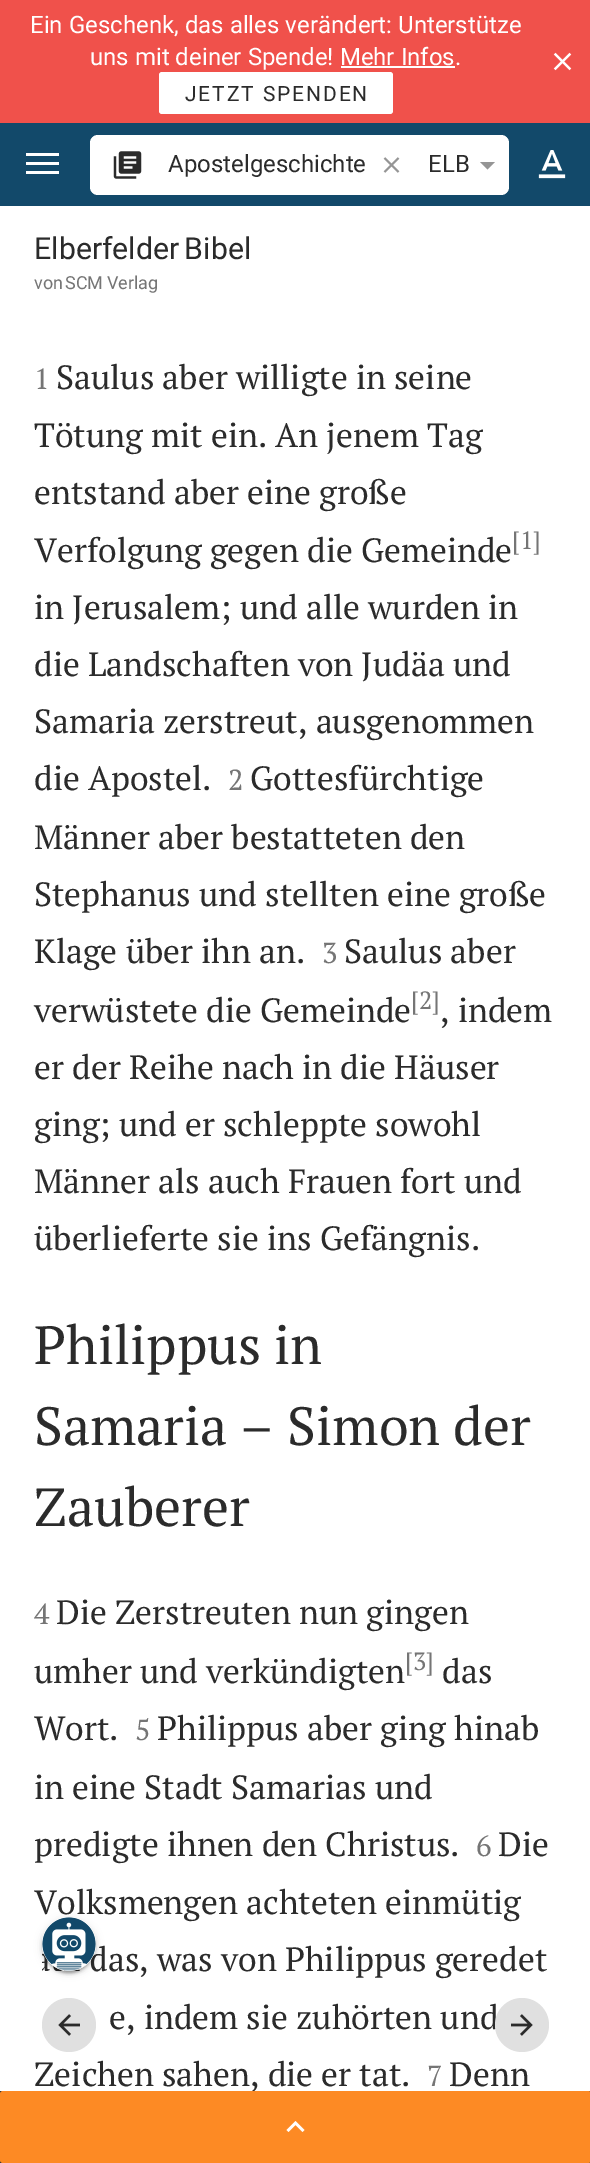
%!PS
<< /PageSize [590 2163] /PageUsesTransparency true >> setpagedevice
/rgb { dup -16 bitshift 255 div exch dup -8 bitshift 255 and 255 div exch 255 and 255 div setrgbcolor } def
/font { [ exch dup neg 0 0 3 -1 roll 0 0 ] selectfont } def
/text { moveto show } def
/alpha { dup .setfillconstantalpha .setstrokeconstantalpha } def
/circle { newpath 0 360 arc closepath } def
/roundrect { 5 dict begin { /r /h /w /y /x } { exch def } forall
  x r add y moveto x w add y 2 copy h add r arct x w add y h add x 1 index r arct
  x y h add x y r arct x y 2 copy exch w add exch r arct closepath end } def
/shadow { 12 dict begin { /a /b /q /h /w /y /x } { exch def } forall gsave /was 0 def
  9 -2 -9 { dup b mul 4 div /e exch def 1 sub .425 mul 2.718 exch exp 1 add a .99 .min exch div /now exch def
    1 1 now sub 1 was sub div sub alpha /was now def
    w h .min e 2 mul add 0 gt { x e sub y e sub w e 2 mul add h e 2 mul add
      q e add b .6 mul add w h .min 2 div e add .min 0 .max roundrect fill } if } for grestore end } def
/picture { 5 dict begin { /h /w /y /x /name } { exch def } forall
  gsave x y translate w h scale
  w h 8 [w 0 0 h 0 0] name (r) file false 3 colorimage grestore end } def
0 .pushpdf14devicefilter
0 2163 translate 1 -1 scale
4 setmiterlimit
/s1 { /Roboto-Regular 24 font 16#FFFFFF rgb } def
/s2 { /Roboto-Regular 24 font 16#2B2B2B rgb } def
/s3 { /Roboto-Regular 18 font 16#757575 rgb } def
/s4 { /PTSerif-Regular 29 font 16#757575 rgb } def
/s5 { /PTSerif-Regular 33.6 font 16#2B2B2B rgb } def
/s6 { /PTSerif-Regular 25 font 16#757575 rgb } def
/s7 { /PTSerif-Regular 53.75 font 16#2B2B2B rgb } def
16#FFFFFF rgb
0 0 590 2163 rectfill
16#F0514B rgb
0 0 590 123 rectfill
s1
(Ein Geschenk, das alles verändert: Unterstütze) 30 33 text
(uns mit deiner Spende! Mehr Infos.) 90 65 text
341 66 114 2 rectfill
159 72 234 42 3 roundrect fill
/Roboto-Regular 21 font
16#2B2B2B rgb
185 101 moveto 1.9 0 (JETZT SPENDEN) ashow
(pic1.raw) 553 52 19 19 picture
16#12496A rgb
0 123 590 83 rectfill
16#FFFFFF rgb
26 153 33 3 rectfill
26 162 33 3 rectfill
26 171 33 3 rectfill
90 135 419 60 8 roundrect fill
(pic2.raw) 113 151 29 28 picture
s2
(Apostelgeschichte) 168 172 text
(pic3.raw) 383 157 17 16 picture
(ELB) 428 172 text
16#959595 rgb
480 162 moveto 487.5 169.5 lineto 495 162 lineto closepath fill
(pic4.raw) 538 150 28 29 picture
/Roboto-Regular 30.25 font
16#2B2B2B rgb
34 259 moveto -2 0 32 (Elberfelder Bibel) widthshow
s3
(von) 34 289 text
65 289 moveto -1 0 32 (SCM Verlag) widthshow
s4
(1) 34 389 text
s5
(Saulus aber willigte in seine) 56 389 text
(Tötung mit ein. An jenem Tag) 34 447 text
(entstand aber eine große) 34 504 text
(Verfolgung gegen die Gemeinde) 34 562 text
s6
([1]) 512 549 text
s5
(in Jerusalem; und alle wurden in) 34 619 text
(die Landschaften von Judäa und) 34 676 text
(Samaria zerstreut, ausgenommen) 34 733 text
(die Apostel.) 34 790 text
s4
(2) 228 790 text
s5
(Gottesfürchtige) 250 790 text
(Männer aber bestatteten den) 34 849 text
(Stephanus und stellten eine große) 34 906 text
(Klage über ihn an.) 34 963 text
s4
(3) 322 963 text
s5
(Saulus aber) 344 963 text
(verwüstete die Gemeinde) 34 1022 text
s6
([2]) 411 1009 text
s5
(, indem) 440 1022 text
(er der Reihe nach in die Häuser) 34 1079 text
(ging; und er schleppte sowohl) 34 1136 text
(Männer als auch Frauen fort und) 34 1193 text
(überlieferte sie ins Gefängnis.) 34 1250 text
s7
(Philippus in) 34 1364 text
(Samaria – Simon der) 34 1445 text
(Zauberer) 34 1526 text
s4
(4) 34 1624 text
s5
(Die Zerstreuten nun gingen) 56 1624 text
(umher und verkündigten) 34 1683 text
s6
([3]) 405 1670 text
s5
(das) 442 1683 text
(Wort.) 34 1740 text
s4
(5) 135 1740 text
s5
(Philippus aber ging hinab) 157 1740 text
(in eine Stadt Samarias und) 34 1799 text
(predigte ihnen den Christus.) 34 1856 text
s4
(6) 476 1856 text
s5
(Die) 498 1856 text
(Volksmengen achteten einmütig) 34 1914 text
(das, was von Philippus geredet) 89 1971 text
(e, indem sie zuhörten und) 109 2029 text
(Zeichen sahen, die er tat.) 34 2086 text
s4
(7) 427 2086 text
s5
(Denn) 449 2086 text
16#E0E0E0 rgb
69 2025 27 circle fill
(pic5.raw) 58 2014 22 22 picture
522 2025 27 circle fill
(pic6.raw) 511 2014 22 22 picture
16#363636 rgb
0 2091 590 72 rectfill
16#FD8A24 rgb
0 2091 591 72 3 roundrect fill
16#FFFFFF rgb
288.5 2132 moveto 295.5 2125 lineto 302.5 2132 lineto 304.5 2130 lineto 295.5 2121 lineto 286.5 2130 lineto closepath fill
16#000000 rgb
42 1919 54 54 27 4 0.12 shadow
42 1920 54 54 27 1.5 0.14 shadow
45 1925 48 48 24 1 0.2 shadow
16#FFFFFF rgb
69 1944 27 circle fill
(pic7.raw) 42 1917 54 54 picture
.poppdf14devicefilter showpage
